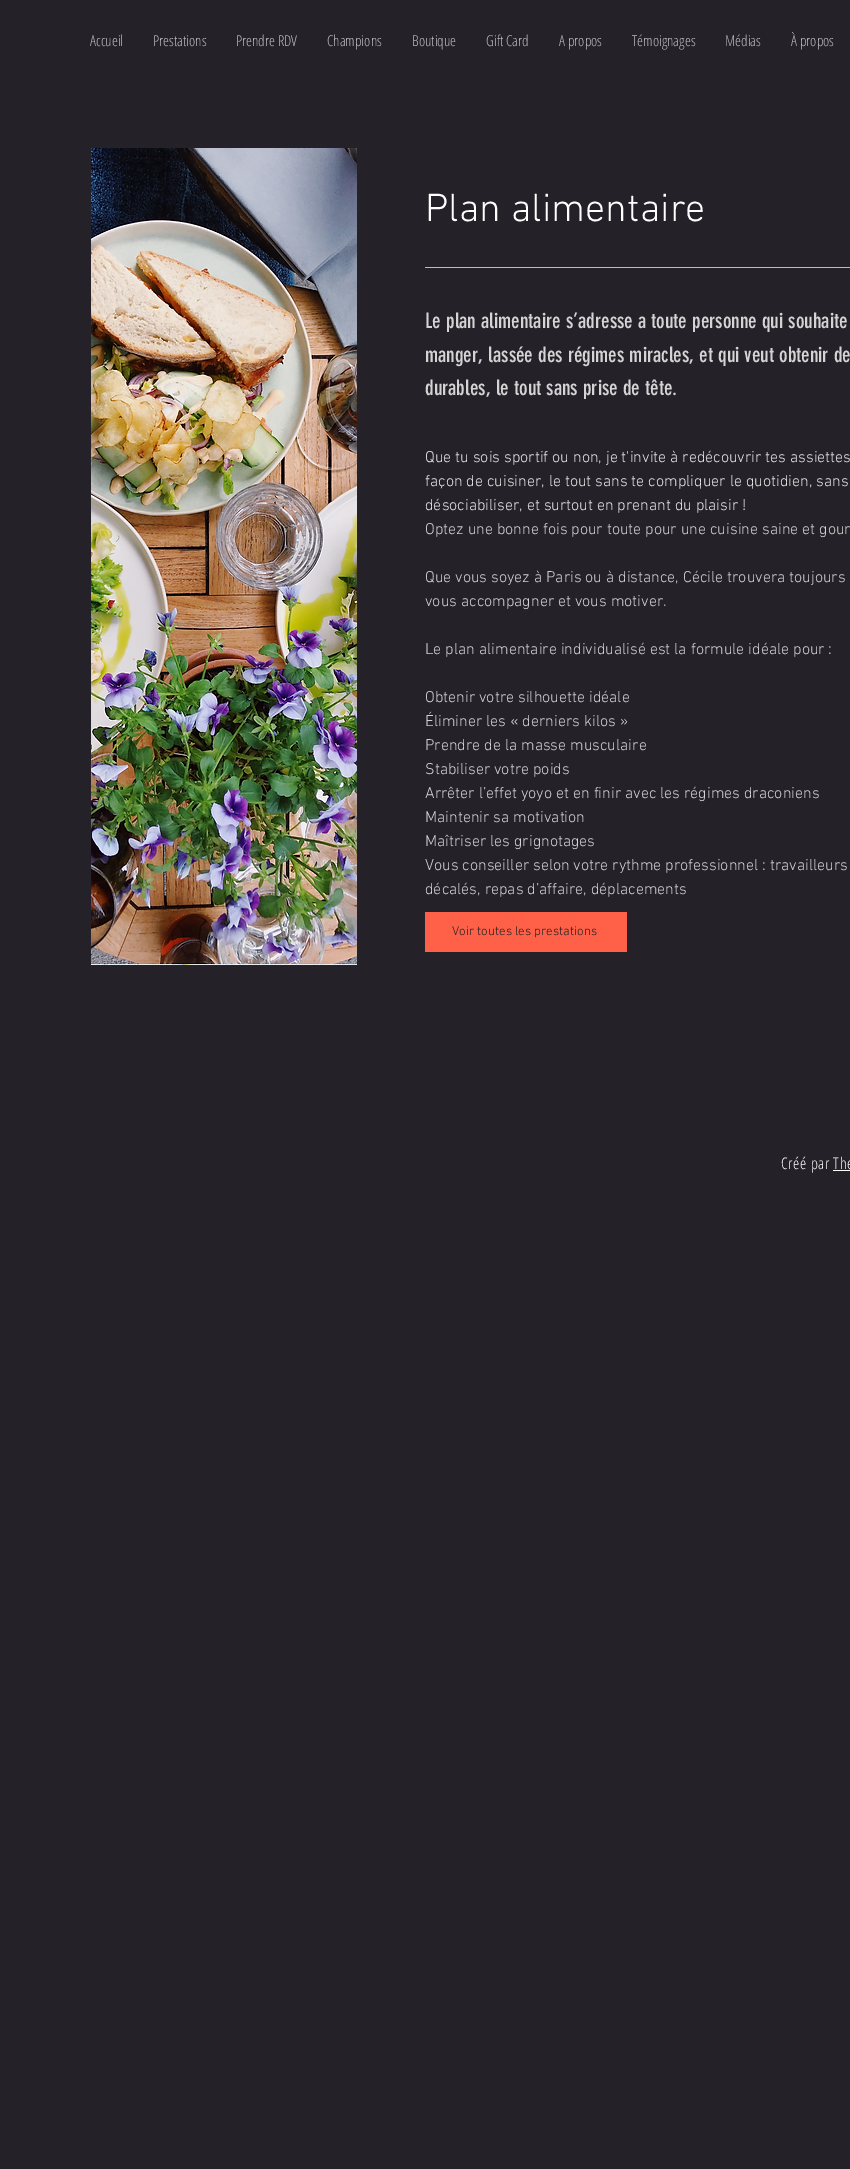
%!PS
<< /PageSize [850 2169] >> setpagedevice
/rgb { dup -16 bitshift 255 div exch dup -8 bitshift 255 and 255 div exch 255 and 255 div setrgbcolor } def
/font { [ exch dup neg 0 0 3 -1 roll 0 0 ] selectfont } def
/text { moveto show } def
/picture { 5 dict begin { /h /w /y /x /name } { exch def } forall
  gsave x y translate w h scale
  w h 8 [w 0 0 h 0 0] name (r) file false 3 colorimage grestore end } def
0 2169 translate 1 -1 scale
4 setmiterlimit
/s1 { /OpenSansCondensed-Light 15 font 16#BDBDBD rgb } def
/s2 { /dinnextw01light-Light 40 font 16#FFFFFF rgb } def
/s3 { /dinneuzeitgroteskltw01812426-Regular 21 font 16#D4D4D4 rgb } def
/s4 { /dinnextw01light-Light 16 font 16#E8E8E8 rgb } def
/s5 { /dinnextw01light-Light 16 font 16#D4D4D4 rgb } def
/s6 { /dinnextw01light-Light 13 font 16#252128 rgb } def
16#252128 rgb
0 0 850 2169 rectfill
s1
(Accueil) 90 46 text
(Prestations) 153 46 text
(Prendre RDV) 236 46 text
(Champions) 327 46 text
(Boutique) 412 46 text
(Gift Card) 486 46 text
(A propos) 559 46 text
(Témoignages) 632 46 text
(Médias) 725 46 text
(À propos) 791 46 text
(pic1.raw) 91 148 266 817 picture
s2
(Plan alimentaire) 425 221 text
16#BDBDBD rgb
425 267 425 1 rectfill
s3
(Le plan alimentaire s’adresse a toute personne qui souhaite) 425 328 text
(manger, lassée des régimes miracles, et qui veut obtenir de) 425 362 text
(durables, le tout sans prise de tête.) 425 395 text
s4
(Que tu sois sportif ou non, je t'invite à redécouvrir tes assiettes) 425 462 text
(façon de cuisiner, le tout sans te compliquer le quotidien, sans) 425 486 text
(désociabiliser, et surtout en prenant du plaisir !) 425 510 text
s5
(Optez une bonne fois pour toute pour une cuisine saine et gour) 425 534 text
(Que vous soyez à Paris ou à distance, Cécile trouvera toujours) 425 582 text
(vous accompagner et vous motiver.) 425 606 text
(Le plan alimentaire individualisé est la formule idéale pour :) 425 654 text
(Obtenir votre silhouette idéale) 425 702 text
(Éliminer les « derniers kilos ») 425 726 text
(Prendre de la masse musculaire) 425 750 text
(Stabiliser votre poids) 425 774 text
(Arrêter l’effet yoyo et en finir avec les régimes draconiens) 425 798 text
(Maintenir sa motivation) 425 822 text
(Maîtriser les grignotages) 425 846 text
(Vous conseiller selon votre rythme professionnel : travailleurs) 425 870 text
(décalés, repas d’affaire, déplacements) 425 894 text
16#FE6148 rgb
425 912 202 40 rectfill
s6
(Voir toutes les prestations) 452 935 text
/OpenSansCondensed-Light 16 font
16#FFFFFF rgb
781 1169 moveto 0.6 0 (Créé par The) ashow
833 1170 17 1 rectfill
showpage
